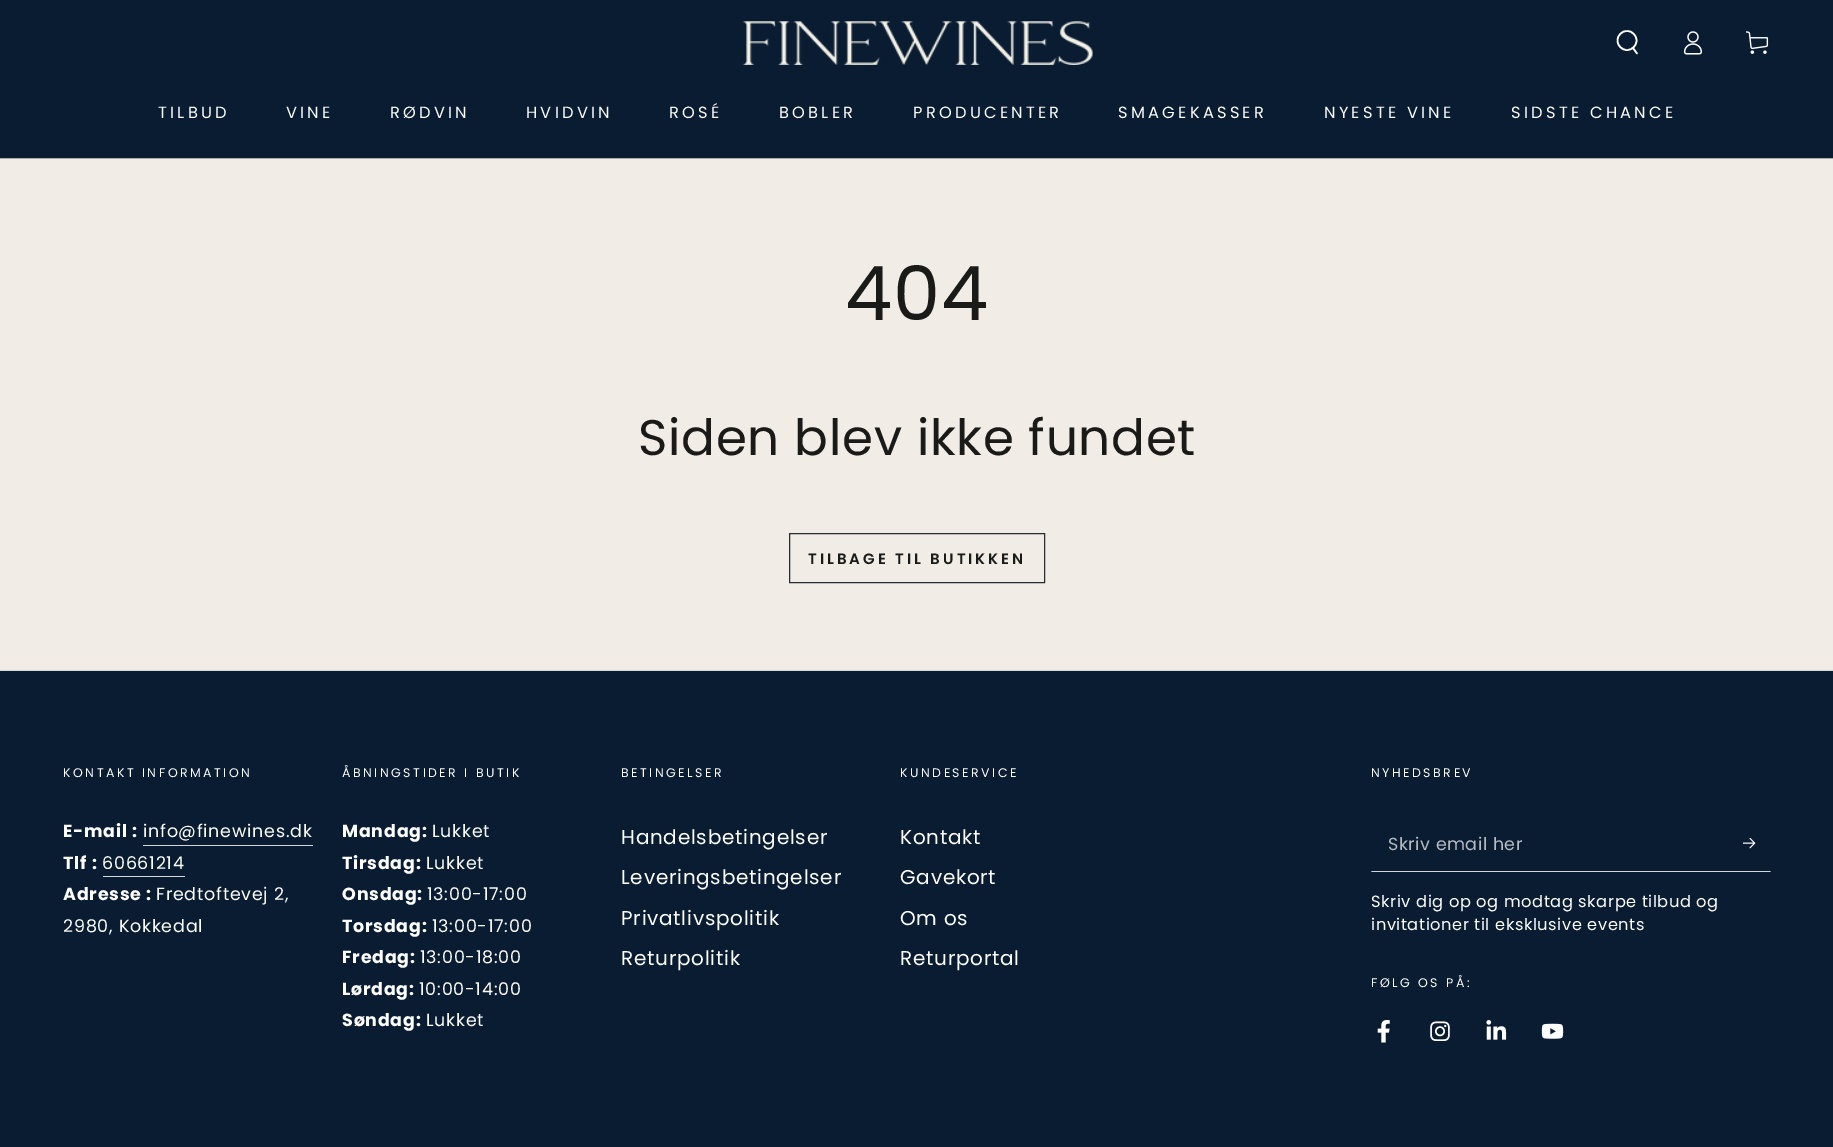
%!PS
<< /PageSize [1833 1147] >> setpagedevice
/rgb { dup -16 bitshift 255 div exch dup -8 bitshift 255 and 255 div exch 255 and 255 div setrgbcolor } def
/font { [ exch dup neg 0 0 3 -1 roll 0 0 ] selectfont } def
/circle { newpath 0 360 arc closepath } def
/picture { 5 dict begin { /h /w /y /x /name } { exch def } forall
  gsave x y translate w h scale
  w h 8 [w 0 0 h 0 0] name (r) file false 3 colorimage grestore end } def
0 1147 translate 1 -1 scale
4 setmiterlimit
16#F1EDE6 rgb
0 0 1833 1147 rectfill
16#ACAEB0 rgb
0 158 moveto 0 159 lineto 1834 159 lineto 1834 1 lineto 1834 158 lineto closepath fill
16#0A1C32 rgb
0 0 1833 158 rectfill
(pic1.raw) 742 21 351 44 picture
16#FFFFFF rgb
1.6 setlinewidth
1627 40.5 9.5 circle stroke
1 setlinecap
1633 48 moveto 1637 53.5 lineto stroke
(pic2.raw) 1683 31 20 24 picture
(pic3.raw) 1746 31 23 23 picture
/Poppins-Regular 16.25 font
158 118 moveto 3.25 0 (TILBUD) ashow
286 118 moveto 3.25 0 (VINE) ashow
390 118 moveto 3.25 0 (RØDVIN) ashow
526 118 moveto 3.25 0 (HVIDVIN) ashow
669 118 moveto 3.25 0 (ROSÉ) ashow
779 118 moveto 3.25 0 (BOBLER) ashow
913 118 moveto 3.25 0 (PRODUCENTER) ashow
1118 118 moveto 3.25 0 (SMAGEKASSER) ashow
1324 118 moveto 3.25 0 (NYESTE VINE) ashow
1511 118 moveto 3.25 0 (SIDSTE CHANCE) ashow
/Poppins-Regular 75 font
16#1A1B18 rgb
845 320 moveto 0.75 0 (404) ashow
/Poppins-Regular 50 font
638 455 moveto 0.75 0 (Siden blev ikke fundet) ashow
16#272C32 rgb
1 setlinewidth
0 setlinecap
789.5 533.5 255 49 rectstroke
/Poppins-SemiBold 15 font
16#1A1B18 rgb
808 564 moveto 3 0 (TILBAGE TIL BUTIKKEN) ashow
16#0A1C32 rgb
0 671 1833 476 rectfill
16#D2D5D9 rgb
0 670 1833 1 rectfill
/Poppins-Regular 12.5 font
16#FFFFFF rgb
63 777 moveto 2.5 0 (KONTAKT INFORMATION) ashow
/Poppins-Bold 17.5 font
63 837 moveto 0.75 0 (E-mail :) ashow
/Poppins-Regular 17.5 font
143 837 moveto 0.75 0 (info@finewines.dk) ashow
16#D2D5D9 rgb
143 845 170 1 rectfill
/Poppins-Bold 17.5 font
16#FFFFFF rgb
63 869 moveto 0.75 0 (Tlf :) ashow
/Poppins-Regular 17.5 font
102 869 moveto 0.75 0 (60661214) ashow
16#D2D5D9 rgb
103 876 82 1 rectfill
/Poppins-Bold 17.5 font
16#FFFFFF rgb
63 900 moveto 0.75 0 (Adresse :) ashow
/Poppins-Regular 17.5 font
156 900 moveto 0.75 0 (Fredtoftevej 2,) ashow
63 932 moveto 0.75 0 (2980, Kokkedal) ashow
/Poppins-Regular 12.5 font
342 777 moveto 2.5 0 (ÅBNINGSTIDER I BUTIK) ashow
/Poppins-Bold 17.5 font
342 837 moveto 0.75 0 (Mandag:) ashow
/Poppins-Regular 17.5 font
432 837 moveto 0.75 0 (Lukket) ashow
/Poppins-Bold 17.5 font
342 869 moveto 0.75 0 (Tirsdag:) ashow
/Poppins-Regular 17.5 font
426 869 moveto 0.75 0 (Lukket) ashow
/Poppins-Bold 17.5 font
342 900 moveto 0.75 0 (Onsdag:) ashow
/Poppins-Regular 17.5 font
427 900 moveto 0.75 0 (13:00-17:00) ashow
/Poppins-Bold 17.5 font
342 932 moveto 0.75 0 (Torsdag:) ashow
/Poppins-Regular 17.5 font
432 932 moveto 0.75 0 (13:00-17:00) ashow
/Poppins-Bold 17.5 font
342 963 moveto 0.75 0 (Fredag:) ashow
/Poppins-Regular 17.5 font
420 963 moveto 0.75 0 (13:00-18:00) ashow
/Poppins-Bold 17.5 font
342 995 moveto 0.75 0 (Lørdag:) ashow
/Poppins-Regular 17.5 font
419 995 moveto 0.75 0 (10:00-14:00) ashow
/Poppins-Bold 17.5 font
342 1026 moveto 0.75 0 (Søndag:) ashow
/Poppins-Regular 17.5 font
426 1026 moveto 0.75 0 (Lukket) ashow
/Poppins-Regular 12.5 font
621 777 moveto 2.5 0 (BETINGELSER) ashow
/Poppins-Regular 20 font
621 844 moveto 0.75 0 (Handelsbetingelser) ashow
621 884 moveto 0.75 0 (Leveringsbetingelser) ashow
621 925 moveto 0.75 0 (Privatlivspolitik) ashow
621 965 moveto 0.75 0 (Returpolitik) ashow
/Poppins-Regular 12.5 font
900 777 moveto 2.5 0 (KUNDESERVICE) ashow
/Poppins-Regular 20 font
900 844 moveto 0.75 0 (Kontakt) ashow
900 884 moveto 0.75 0 (Gavekort) ashow
900 925 moveto 0.75 0 (Om os) ashow
900 965 moveto 0.75 0 (Returportal) ashow
/Poppins-Regular 12.5 font
1371 777 moveto 2.5 0 (NYHEDSBREV) ashow
16#D2D5D9 rgb
1771 872 moveto 1371 872 lineto 1372 871 lineto 1770 871 lineto closepath fill
/Poppins-Regular 17.5 font
16#B6BBC2 rgb
1388 850 moveto 0.5 0 (Skriv email her) ashow
(pic4.raw) 1743 838 13 11 picture
/Poppins-Regular 16.25 font
16#FFFFFF rgb
1371 907 moveto 0.6 0 (Skriv dig op og modtag skarpe tilbud og) ashow
1371 930 moveto 0.6 0 (invitationer til eksklusive events) ashow
/Poppins-Regular 12.5 font
1371 987 moveto 2.5 0 (FØLG OS PÅ:) ashow
(pic5.raw) 1377 1020 13 23 picture
(pic6.raw) 1430 1021 20 20 picture
(pic7.raw) 1486 1020 21 20 picture
(pic8.raw) 1541 1023 23 16 picture
showpage
